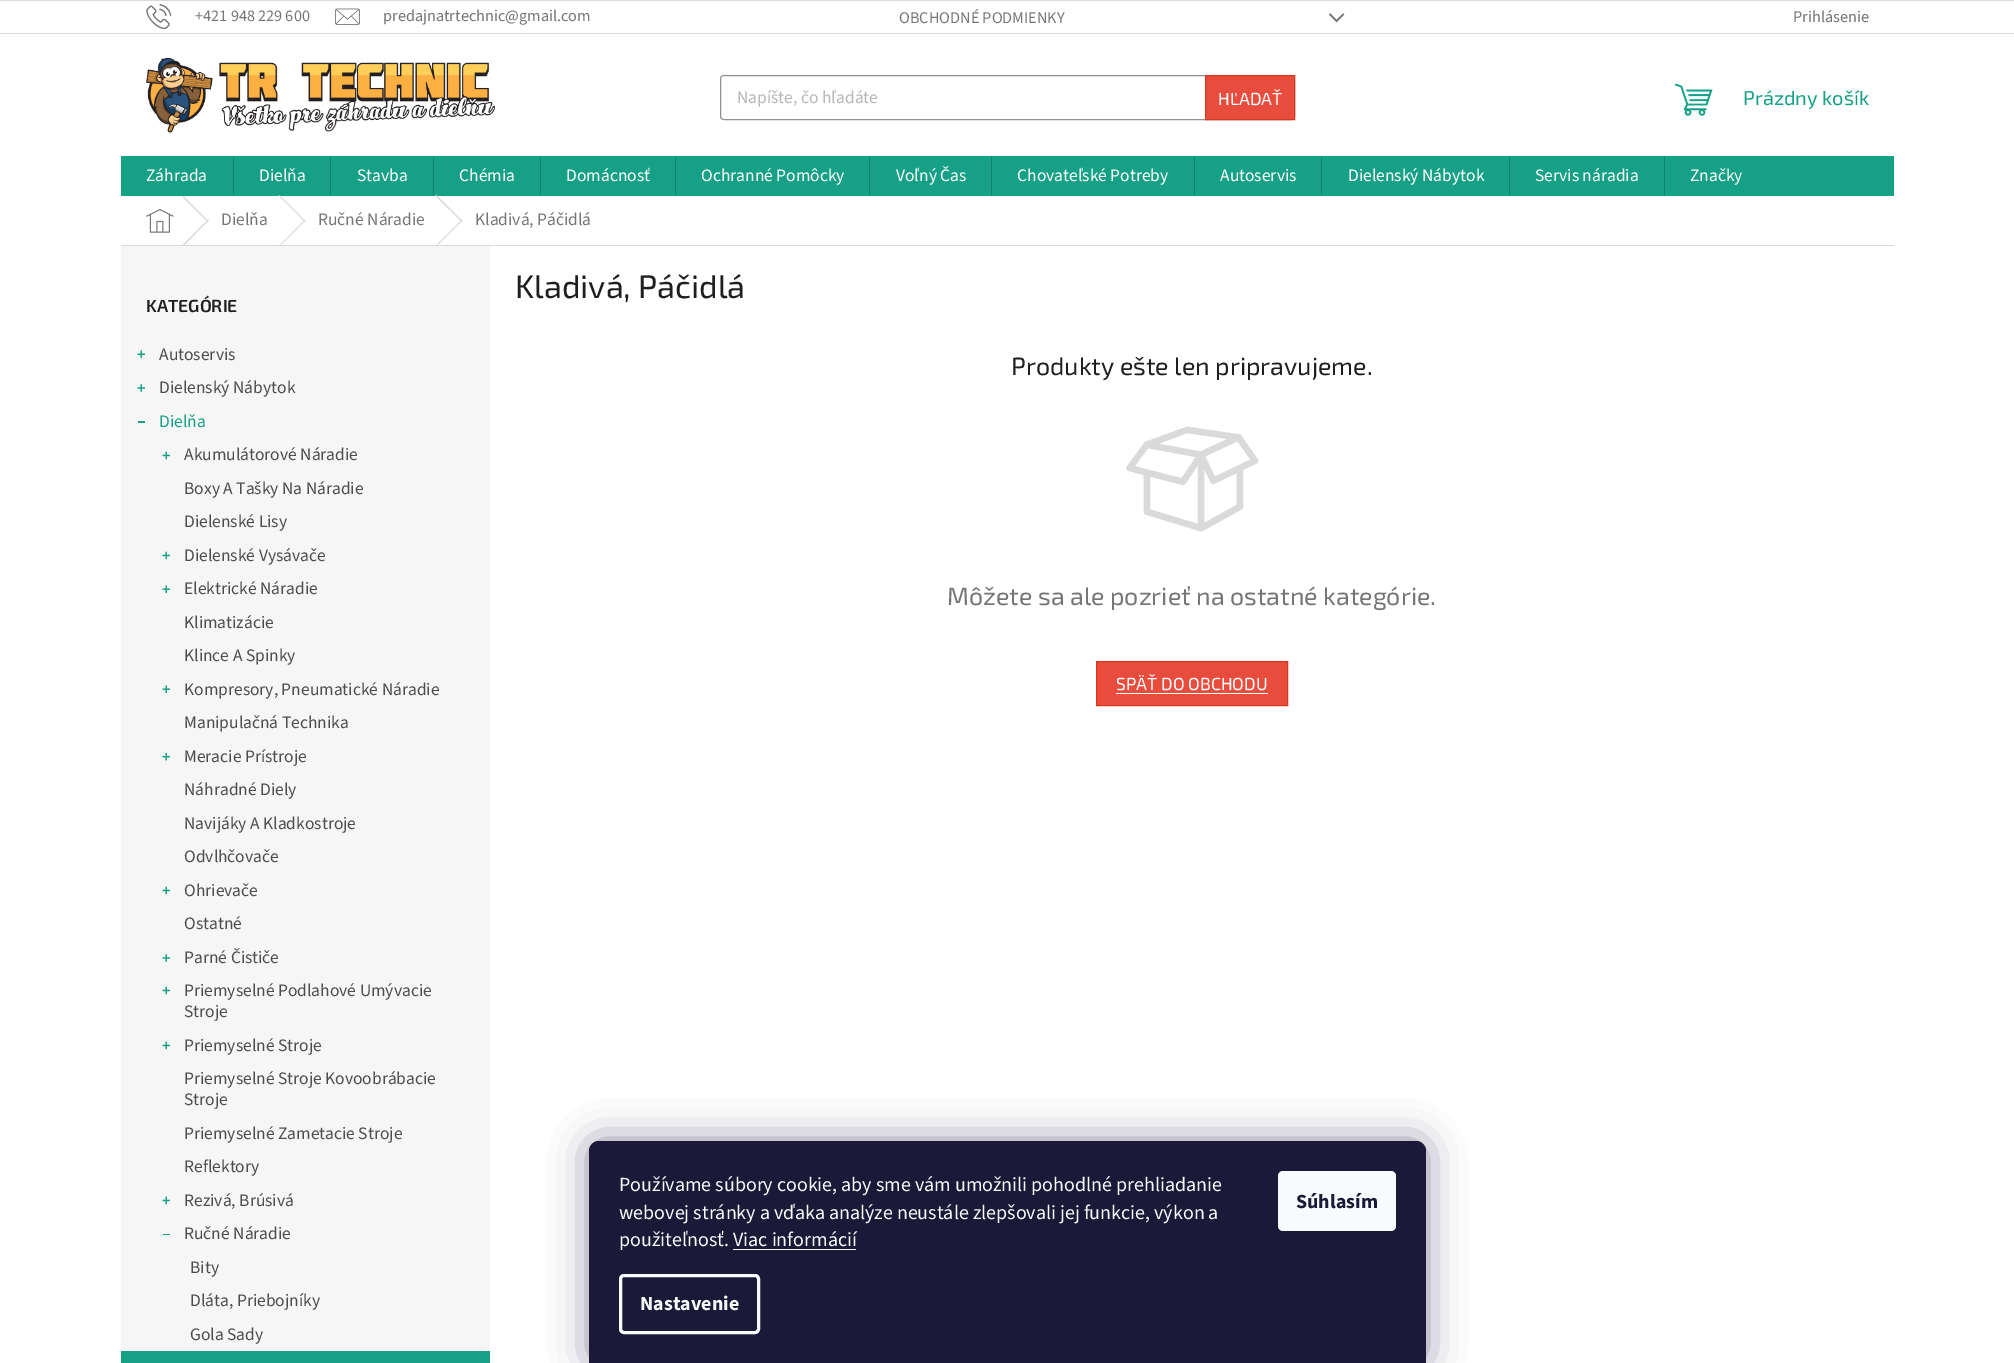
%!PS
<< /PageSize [2014 1363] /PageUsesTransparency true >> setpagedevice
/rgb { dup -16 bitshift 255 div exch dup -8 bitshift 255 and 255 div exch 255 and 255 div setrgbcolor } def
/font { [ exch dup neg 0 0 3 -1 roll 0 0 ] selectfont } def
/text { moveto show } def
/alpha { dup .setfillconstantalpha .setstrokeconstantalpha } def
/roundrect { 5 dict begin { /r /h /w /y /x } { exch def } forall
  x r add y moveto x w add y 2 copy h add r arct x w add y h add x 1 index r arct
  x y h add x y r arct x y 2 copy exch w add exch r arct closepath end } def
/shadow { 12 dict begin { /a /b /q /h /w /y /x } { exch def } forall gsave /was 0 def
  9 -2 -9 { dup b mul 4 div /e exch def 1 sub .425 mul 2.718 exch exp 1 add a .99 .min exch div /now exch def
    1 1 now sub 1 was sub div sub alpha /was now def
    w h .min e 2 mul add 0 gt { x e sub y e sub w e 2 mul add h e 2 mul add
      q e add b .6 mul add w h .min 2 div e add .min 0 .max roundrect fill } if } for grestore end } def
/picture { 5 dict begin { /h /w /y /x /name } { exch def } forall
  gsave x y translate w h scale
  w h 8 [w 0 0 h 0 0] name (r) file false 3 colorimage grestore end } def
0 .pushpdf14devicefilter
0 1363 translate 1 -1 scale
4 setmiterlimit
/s1 { /SourceSans3-Regular 16.25 font 16#767676 rgb } def
/s2 { /SourceSans3-Regular 17.5 font 16#B6B6B6 rgb } def
/s3 { /Exo2-Regular 17.5 font 16#FFFFFF rgb } def
/s4 { /Exo2-Regular 20 font 16#16A085 rgb } def
/s5 { /SourceSans3-Regular 17.5 font 16#FFFFFF rgb } def
/s6 { /SourceSans3-Regular 17.5 font 16#767676 rgb } def
/s7 { /Exo2-SemiBold 17.5 font 16#1F1F1F rgb } def
/s8 { /SourceSans3-Regular 17.5 font 16#4D4D4D rgb } def
/s9 { /SourceSans3-Regular 17.5 font 16#16A085 rgb } def
/s10 { /Exo2-Regular 32.5 font 16#1F1F1F rgb } def
/s11 { /Exo2-Regular 25 font 16#1F1F1F rgb } def
/s12 { /Exo2-Regular 25 font 16#767676 rgb } def
/s13 { /SourceSans3-Regular 20 font 16#F8FAFB rgb } def
/s14 { /SourceSans3-Bold 20 font 16#F8FAFB rgb } def
/s15 { /SourceSans3-Bold 20 font 16#1A1937 rgb } def
16#FFFFFF rgb
0 0 2014 1363 rectfill
16#DADADA rgb
0 0 2014 1 rectfill
0 33 2014 1 rectfill
(pic1.raw) 146 4 26 26 picture
s1
(+421 948 229 600) 195 21 text
(pic2.raw) 335 8 25 17 picture
(predajnatrtechnic@gmail.com) 383 21 text
(OBCHODNÉ PODMIENKY) 899 23 text
(pic3.raw) 1328 13 17 10 picture
(Prihlásenie) 1793 22 text
(pic4.raw) 146 57 349 76 picture
16#919191 rgb
720.5 75.5 574 44 3.5 roundrect stroke
s2
(Napíšte, čo hľadáte) 737 103 text
16#E74C3C rgb
1205.5 75.5 moveto 1294.5 75.5 lineto 1294.5 119.5 lineto 1205.5 119.5 lineto closepath gsave fill grestore
16#D93621 rgb
stroke
s3
(HĽADAŤ) 1218 105 text
(pic5.raw) 1675 83 38 33 picture
s4
(Prázdny košík) 1743 105 text
121 156 1773 40 rectfill
s5
(Záhrada) 146 181 text
16#12826C rgb
233 156 1 40 rectfill
s5
(Dielňa) 259 181 text
16#12826C rgb
330 156 1 40 rectfill
s5
(Stavba) 357 181 text
16#12826C rgb
433 156 1 40 rectfill
s5
(Chémia) 459 181 text
16#12826C rgb
540 156 1 40 rectfill
s5
(Domácnosť) 566 181 text
16#12826C rgb
675 156 1 40 rectfill
s5
(Ochranné Pomôcky) 701 181 text
16#12826C rgb
869 156 1 40 rectfill
s5
(Voľný Čas) 896 181 text
16#12826C rgb
991 156 1 40 rectfill
s5
(Chovateľské Potreby) 1017 181 text
16#12826C rgb
1194 156 1 40 rectfill
s5
(Autoservis) 1220 181 text
16#12826C rgb
1321 156 1 40 rectfill
s5
(Dielenský Nábytok) 1348 181 text
16#12826C rgb
1509 156 1 40 rectfill
s5
(Servis náradia) 1535 181 text
16#12826C rgb
1664 156 1 40 rectfill
s5
(Značky) 1690 181 text
16#DADADA rgb
121 245 1773 1 rectfill
(pic6.raw) 146 209 28 24 picture
182.5 197 moveto 183.5 196 lineto 208.5 221 lineto 208 222 lineto closepath fill
208 219.5 moveto 208.5 220.5 lineto 183.5 246 lineto 182.5 245 lineto closepath fill
s6
(Dielňa) 221 225 text
16#DADADA rgb
279 196 moveto 279.5 195 lineto 305.5 221 lineto 305 222 lineto closepath fill
16#F6F6F6 rgb
121 246 369 1105 rectfill
16#DADADA rgb
305 219.5 moveto 305.5 220.5 lineto 279.5 246.5 lineto 279 246 lineto closepath fill
s6
(Ručné Náradie) 318 225 text
16#DADADA rgb
435.5 196 moveto 436.5 195 lineto 462.5 221 lineto 462 222 lineto closepath fill
462 219.5 moveto 462.5 220.5 lineto 436.5 246.5 lineto 435.5 246 lineto closepath fill
s6
(Kladivá, Páčidlá) 475 225 text
s7
(KATEGÓRIE) 146 312 text
(pic7.raw) 137 350 8 8 picture
s8
(Autoservis) 159 360 text
(pic8.raw) 137 384 8 8 picture
(Dielenský Nábytok) 159 393 text
16#16A085 rgb
138 421 7 2 rectfill
(Dielňa) 159 427 text
(pic9.raw) 162 451 8 9 picture
s8
(Akumulátorové Náradie) 184 460 text
(Boxy A Tašky Na Náradie) 184 494 text
(Dielenské Lisy) 184 527 text
(pic9.raw) 162 551 8 9 picture
(Dielenské Vysávače) 184 561 text
(pic7.raw) 162 585 8 8 picture
(Elektrické Náradie) 184 594 text
(Klimatizácie) 184 628 text
(Klince A Spinky) 184 661 text
(pic7.raw) 162 685 8 8 picture
(Kompresory, Pneumatické Náradie) 184 695 text
(Manipulačná Technika) 184 728 text
(pic10.raw) 162 752 8 9 picture
(Meracie Prístroje) 184 762 text
(Náhradné Diely) 184 795 text
(Navijáky A Kladkostroje) 184 829 text
(Odvlhčovače) 184 862 text
(pic9.raw) 162 886 8 9 picture
(Ohrievače) 184 896 text
(Ostatné) 184 929 text
(pic8.raw) 162 954 8 8 picture
(Parné Čističe) 184 963 text
(pic9.raw) 162 986 8 9 picture
(Priemyselné Podlahové Umývacie) 184 996 text
(Stroje) 184 1017 text
(pic9.raw) 162 1041 8 9 picture
(Priemyselné Stroje) 184 1051 text
(Priemyselné Stroje Kovoobrábacie) 184 1084 text
(Stroje) 184 1105 text
(Priemyselné Zametacie Stroje) 184 1139 text
(Reflektory) 184 1172 text
(pic9.raw) 162 1196 8 9 picture
(Rezivá, Brúsivá) 184 1206 text
16#16A085 rgb
163 1234 7 1 rectfill
s8
(Ručné Náradie) 184 1239 text
(Bity) 190 1273 text
(Dláta, Priebojníky) 190 1306 text
(Gola Sady) 190 1340 text
16#16A085 rgb
121 1351 369 12 rectfill
s10
(Kladivá, Páčidlá) 515 298 text
s11
(Produkty ešte len pripravujeme.) 1011 375 text
(pic11.raw) 1126 426 133 106 picture
s12
(Môžete sa ale pozrieť na ostatné kategórie.) 947 605 text
16#E74C3C rgb
1096.5 661.5 moveto 1287.5 661.5 lineto 1287.5 705.5 lineto 1096.5 705.5 lineto closepath gsave fill grestore
16#D93621 rgb
stroke
s3
(SPÄŤ DO OBCHODU) 1116 690 text
1116 693 152 1 rectfill
16#1B1939 rgb
589 1141 837 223 10 19 0.5 shadow
16#1A1937 rgb
599 1141 moveto 1416 1141 lineto 1421.5 1141 1426 1145.5 1426 1151 curveto 1426 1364 lineto 589 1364 lineto 589 1151 lineto 589 1145.5 593.5 1141 599 1141 curveto closepath fill
s13
(Používame súbory cookie, aby sme vám umožnili pohodlné prehliadanie) 619 1191 text
(webovej stránky a vďaka analýze neustále zlepšovali jej funkcie, výkon a) 619 1219 text
(použiteľnosť. Viac informácií) 619 1246 text
733 1249 123 1 rectfill
3 setlinewidth
620.5 1275.5 138 57 3.5 roundrect stroke
s14
(Nastavenie) 640 1310 text
1278 1171 118 60 5 roundrect fill
s15
(Súhlasím) 1296 1208 text
.poppdf14devicefilter showpage
